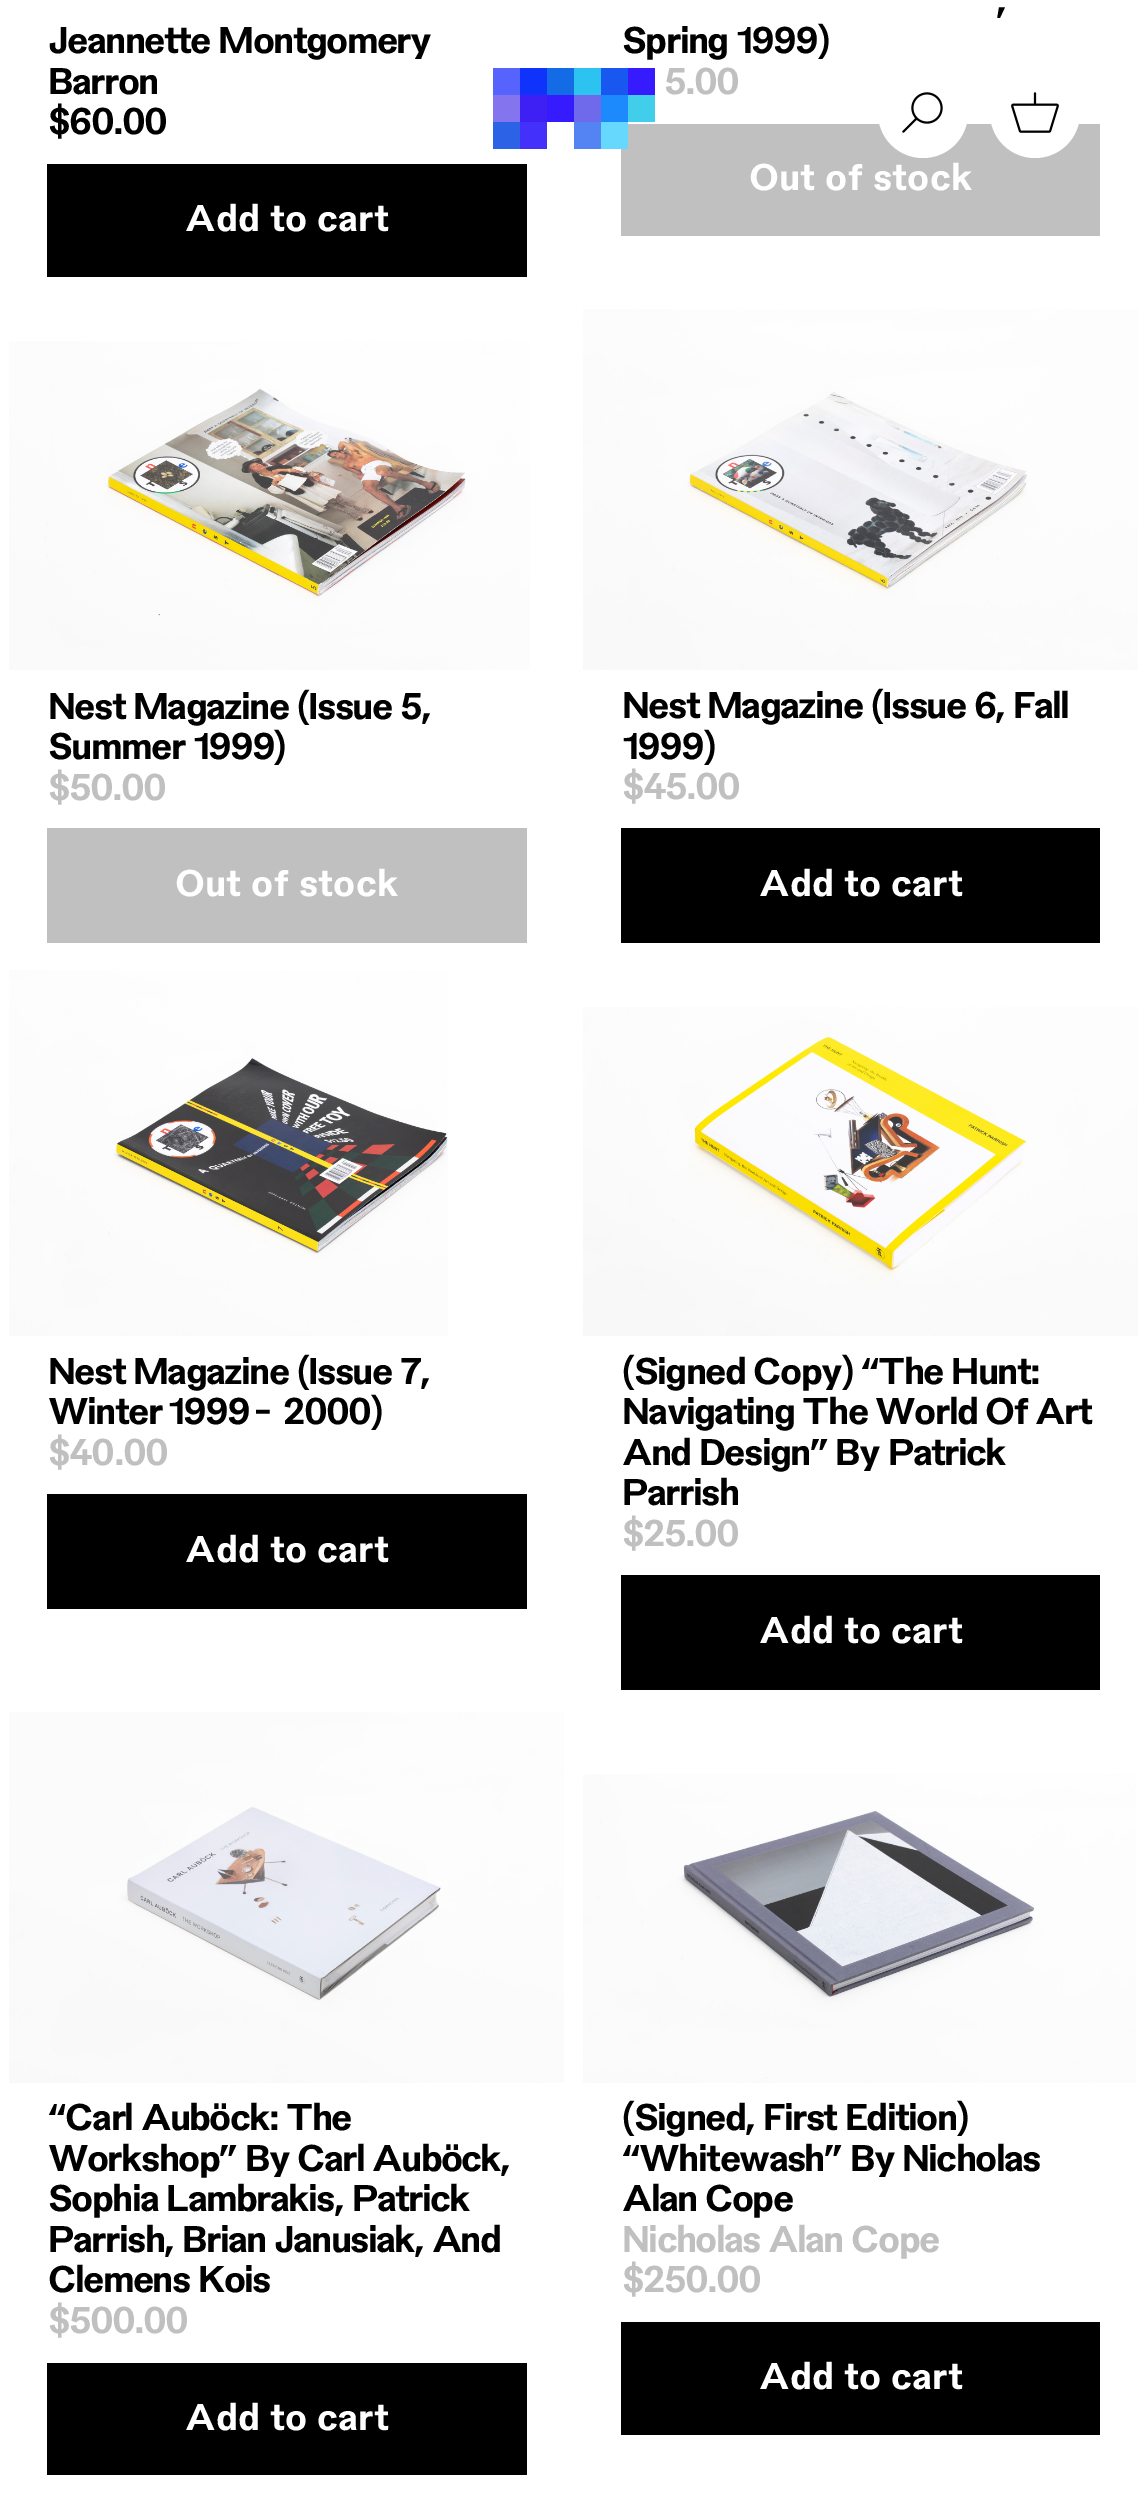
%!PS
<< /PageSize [1147 2517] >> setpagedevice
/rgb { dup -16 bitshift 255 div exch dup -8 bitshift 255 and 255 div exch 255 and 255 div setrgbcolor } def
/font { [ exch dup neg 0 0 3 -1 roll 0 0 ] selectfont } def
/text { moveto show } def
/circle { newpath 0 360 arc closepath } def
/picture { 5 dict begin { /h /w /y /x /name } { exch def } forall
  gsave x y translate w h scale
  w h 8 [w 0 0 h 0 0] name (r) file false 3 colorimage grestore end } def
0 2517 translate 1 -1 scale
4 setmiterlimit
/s1 { /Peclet-Bold 36 font 16#FFFFFF rgb } def
16#FFFFFF rgb
0 0 1147 2517 rectfill
/Peclet-Bold 36 font
16#000000 rgb
48 53 moveto -1.8 0 (Jeannette Montgomery) ashow
48 94 moveto -1.8 0 (Barron) ashow
48 134 moveto -1.8 0 ($60.00) ashow
47 164 480 113 rectfill
s1
(Add to cart) 185 231 text
16#000000 rgb
996 13 moveto -1.8 0 (,) ashow
622 53 moveto -1.8 0 (Spring 1999\)) ashow
16#C0C0C0 rgb
664 94 moveto -1.8 0 (5.00) ashow
621 124 479 112 rectfill
s1
(Out of stock) 749 190 text
(pic1.raw) 9 341 521 329 picture
16#000000 rgb
48 719 moveto -1.8 0 (Nest Magazine \(Issue 5,) ashow
48 759 moveto -1.8 0 (Summer 1999\)) ashow
16#C0C0C0 rgb
48 800 moveto -1.8 0 ($50.00) ashow
47 828 480 115 rectfill
s1
(Out of stock) 175 896 text
(pic2.raw) 583 309 555 361 picture
16#000000 rgb
622 718 moveto -1.8 0 (Nest Magazine \(Issue 6, Fall) ashow
622 759 moveto -1.8 0 (1999\)) ashow
16#C0C0C0 rgb
622 799 moveto -1.8 0 ($45.00) ashow
16#000000 rgb
621 828 479 115 rectfill
s1
(Add to cart) 759 896 text
(pic3.raw) 9 970 439 366 picture
16#000000 rgb
48 1384 moveto -1.8 0 (Nest Magazine \(Issue 7,) ashow
48 1424 moveto -2 0 32 -1.8 0 (Winter 1999 -) awidthshow
283 1424 moveto -2 0 32 -1.8 0 (2000\)) awidthshow
16#C0C0C0 rgb
48 1465 moveto -1.8 0 ($40.00) ashow
16#000000 rgb
47 1494 480 115 rectfill
s1
(Add to cart) 185 1562 text
(pic4.raw) 583 1007 555 329 picture
16#000000 rgb
622 1384 moveto -1.8 0 (\(Signed Copy\) “The Hunt:) ashow
622 1424 moveto -1.8 0 (Navigating The World Of Art) ashow
622 1465 moveto -1.8 0 (And Design” By Patrick) ashow
622 1505 moveto -1.8 0 (Parrish) ashow
16#C0C0C0 rgb
622 1546 moveto -1.8 0 ($25.00) ashow
16#000000 rgb
621 1575 479 115 rectfill
s1
(Add to cart) 759 1643 text
(pic5.raw) 9 1712 555 371 picture
16#000000 rgb
48 2130 moveto -1.8 0 (“Carl Auböck: The) ashow
48 2171 moveto -1.8 0 (Workshop” By Carl Auböck,) ashow
48 2211 moveto -1.8 0 (Sophia Lambrakis, Patrick) ashow
48 2252 moveto -1.8 0 (Parrish, Brian Janusiak, And) ashow
48 2292 moveto -1.8 0 (Clemens Kois) ashow
16#C0C0C0 rgb
48 2333 moveto -1.8 0 ($500.00) ashow
16#000000 rgb
47 2363 480 112 rectfill
s1
(Add to cart) 185 2430 text
(pic6.raw) 583 1774 553 309 picture
16#000000 rgb
622 2130 moveto -1.8 0 (\(Signed, First Edition\)) ashow
622 2171 moveto -1.8 0 (“Whitewash” By Nicholas) ashow
622 2211 moveto -1.8 0 (Alan Cope) ashow
16#C0C0C0 rgb
622 2252 moveto -1.8 0 (Nicholas Alan Cope) ashow
622 2292 moveto -1.8 0 ($250.00) ashow
16#000000 rgb
621 2322 479 113 rectfill
s1
(Add to cart) 759 2389 text
16#5763FD rgb
493 68 27 27 rectfill
16#0F33FB rgb
520 68 27 27 rectfill
16#136CE5 rgb
547 68 27 27 rectfill
16#2DC3F1 rgb
574 68 27 27 rectfill
16#1858F0 rgb
601 68 27 27 rectfill
16#361BFE rgb
628 68 27 27 rectfill
16#8475EF rgb
493 95 27 27 rectfill
16#3E1FF4 rgb
520 95 27 27 rectfill
16#361BFE rgb
547 95 27 27 rectfill
16#6F69EB rgb
574 95 27 27 rectfill
16#1C8AFD rgb
601 95 27 27 rectfill
16#40CEEB rgb
628 95 27 27 rectfill
16#2C62E6 rgb
493 122 27 27 rectfill
16#4331FB rgb
520 122 27 27 rectfill
16#5483F3 rgb
574 122 27 27 rectfill
16#66D8FD rgb
601 122 27 27 rectfill
16#FFFFFF rgb
923 113 45 circle fill
(pic7.raw) 902 92 41 41 picture
1035 113 45 circle fill
(pic8.raw) 1011 92 48 41 picture
showpage
